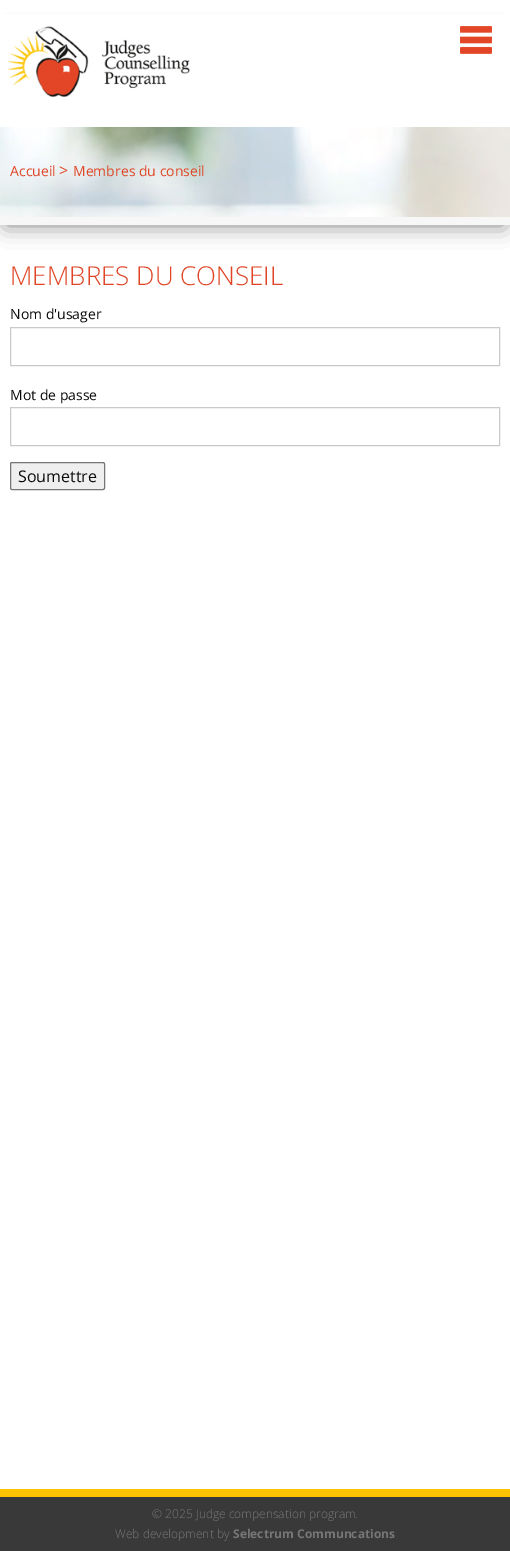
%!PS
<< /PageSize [510 1551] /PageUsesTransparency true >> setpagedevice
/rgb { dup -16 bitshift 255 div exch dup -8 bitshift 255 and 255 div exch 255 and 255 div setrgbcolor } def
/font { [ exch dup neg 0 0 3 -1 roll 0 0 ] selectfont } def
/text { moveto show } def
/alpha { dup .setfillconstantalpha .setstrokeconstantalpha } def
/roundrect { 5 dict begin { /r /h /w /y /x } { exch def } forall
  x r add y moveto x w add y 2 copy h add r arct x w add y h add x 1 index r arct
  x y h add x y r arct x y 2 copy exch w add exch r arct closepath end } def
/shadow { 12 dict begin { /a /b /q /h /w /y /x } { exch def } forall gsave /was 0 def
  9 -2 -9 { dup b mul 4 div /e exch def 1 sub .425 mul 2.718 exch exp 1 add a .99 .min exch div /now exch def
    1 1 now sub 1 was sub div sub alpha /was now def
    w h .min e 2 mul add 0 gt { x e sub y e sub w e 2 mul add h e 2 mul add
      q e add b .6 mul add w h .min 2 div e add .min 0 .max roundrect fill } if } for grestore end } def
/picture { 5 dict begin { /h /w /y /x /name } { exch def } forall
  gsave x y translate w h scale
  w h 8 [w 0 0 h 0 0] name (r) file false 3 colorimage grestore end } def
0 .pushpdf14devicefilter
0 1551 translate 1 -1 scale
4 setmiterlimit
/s1 { /OpenSans-Regular 14 font 16#E04526 rgb } def
/s2 { /OpenSans-Regular 16 font 16#E04526 rgb } def
/s3 { /OpenSans-Light 26 font 16#E04526 rgb } def
/s4 { /OpenSans-Regular 14 font 16#0A0A0A rgb } def
/s5 { /OpenSans-Regular 16 font 16#0A0A0A rgb } def
/s6 { /OpenSans-Light 12 font 16#777777 rgb } def
/s7 { /OpenSans-Bold 12 font 16#777777 rgb } def
16#FFFFFF rgb
0 0 510 1551 rectfill
16#000000 rgb
6 37 498 188 0 11 0.5 shadow
16#FFFFFF rgb
0 14 510 113 rectfill
(pic1.raw) 8 26 182 71 picture
(pic2.raw) 460 26 32 28 picture
(pic3.raw) 0 127 510 90 picture
16#F7F7F7 rgb
0 217 510 8 rectfill
s1
(Accueil) 10 176 text
s2
(>) 59 176 text
s1
(Membres du conseil) 73 176 text
s3
(MEMBRES DU CONSEIL) 10 285 text
s4
(Nom d'usager) 10 319 text
16#CACACA rgb
10.5 327.5 489 38 rectstroke
s4
(Mot de passe) 10 400 text
16#CACACA rgb
10.5 407.5 489 38 rectstroke
16#EFEFEF rgb
10.5 462.5 94 27 1.5 roundrect gsave fill grestore
16#767676 rgb
stroke
s5
(Soumettre) 18 482 text
16#393939 rgb
0 1497 510 54 rectfill
16#FCC300 rgb
0 1489 510 8 rectfill
s6
(© 2025 Judge compensation program.) 152 1518 text
(Web development by) 115 1538 text
s7
(Selectrum Communcations) 233 1538 text
.poppdf14devicefilter showpage
